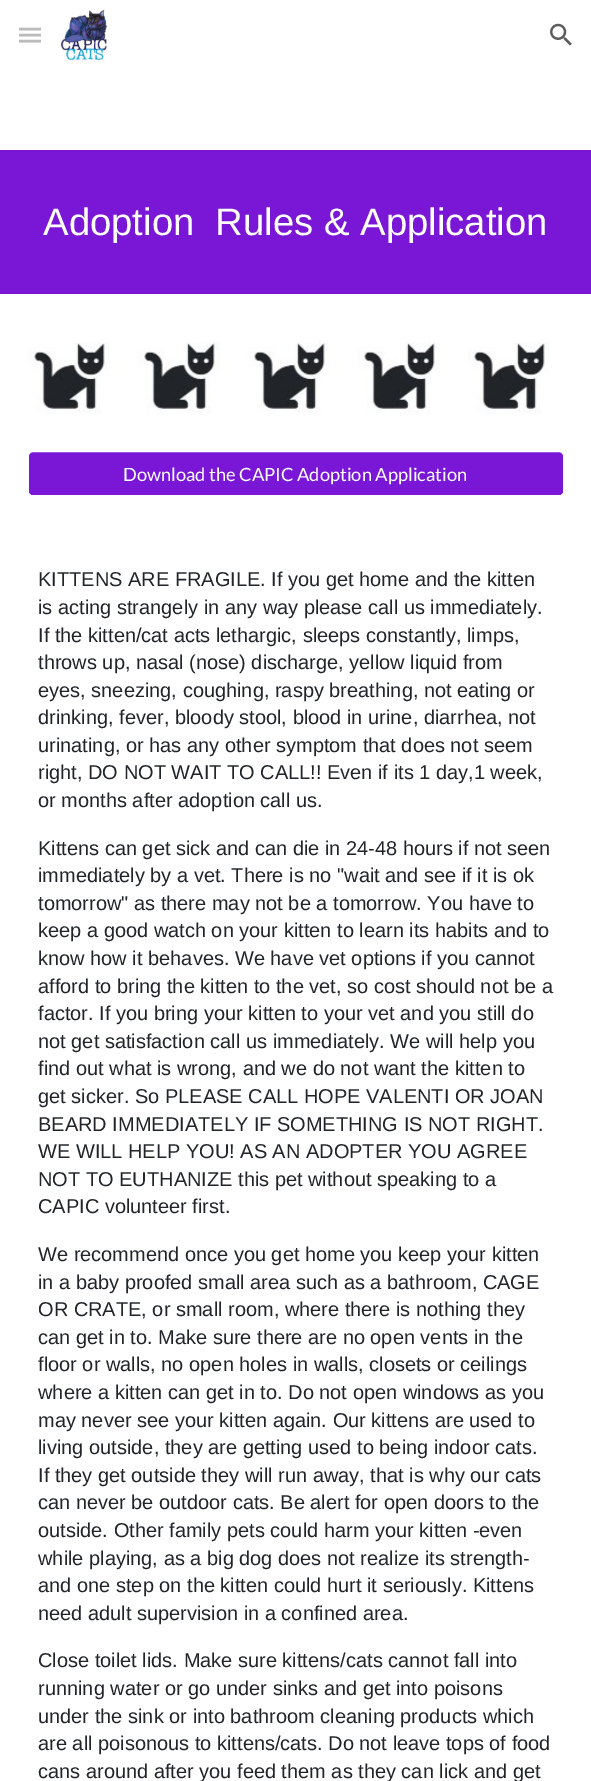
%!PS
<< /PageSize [591 1781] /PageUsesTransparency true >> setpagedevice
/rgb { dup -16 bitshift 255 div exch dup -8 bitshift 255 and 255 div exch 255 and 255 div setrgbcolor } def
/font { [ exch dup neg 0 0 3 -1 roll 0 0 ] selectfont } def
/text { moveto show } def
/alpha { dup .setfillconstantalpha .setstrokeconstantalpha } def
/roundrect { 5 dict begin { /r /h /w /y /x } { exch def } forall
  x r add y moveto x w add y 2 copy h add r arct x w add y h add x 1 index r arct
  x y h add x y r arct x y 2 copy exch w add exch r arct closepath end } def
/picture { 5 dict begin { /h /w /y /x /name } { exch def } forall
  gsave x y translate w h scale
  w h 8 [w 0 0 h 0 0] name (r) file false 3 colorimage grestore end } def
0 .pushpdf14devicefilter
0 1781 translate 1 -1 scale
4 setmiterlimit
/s1 { /LiberationSans-Regular 38.3 font 16#FFFFFF rgb } def
/s2 { /Lato-Regular 18.3 font 16#FFFFFF rgb } def
/s3 { /LiberationSans-Regular 20 font 16#212529 rgb } def
16#FFFFFF rgb
0 0 591 1781 rectfill
16#B2B2B2 rgb
2.5 setlinewidth
19 29 moveto 41 29 lineto 19 35 moveto 41 35 lineto 19 41 moveto 41 41 lineto stroke
0.12 alpha
16#FFFFFF rgb
19 28 22 14 rectfill
1 alpha
(pic1.raw) 60 9 48 51 picture
(pic2.raw) 550 23 22 23 picture
16#7A17D6 rgb
0 150 591 144 rectfill
s1
(Adoption  Rules & Application) 43 235 text
(pic3.raw) 28 342 521 73 picture
16#7A17D6 rgb
28.5 451.5 535 44 4.5 roundrect gsave fill grestore
16#FFFFFF rgb
1 setlinewidth
stroke
16#7A17D6 rgb
29 453 534 42 4 roundrect fill
s2
(Download the CAPIC Adoption Application) 123 481 text
s3
(KITTENS ARE FRAGILE. If you get home and the kitten) 38 586 text
(is acting strangely in any way please call us immediately.) 38 614 text
(If the kitten/cat acts lethargic, sleeps constantly, limps,) 38 642 text
(throws up, nasal \(nose\) discharge, yellow liquid from) 38 669 text
(eyes, sneezing, coughing, raspy breathing, not eating or) 38 697 text
(drinking, fever, bloody stool, blood in urine, diarrhea, not) 38 724 text
(urinating, or has any other symptom that does not seem) 38 752 text
(right, DO NOT WAIT TO CALL!! Even if its 1 day,1 week,) 38 779 text
(or months after adoption call us.) 38 807 text
(Kittens can get sick and can die in 24-48 hours if not seen) 38 855 text
(immediately by a vet. There is no "wait and see if it is ok) 38 882 text
(tomorrow" as there may not be a tomorrow. You have to) 38 910 text
(keep a good watch on your kitten to learn its habits and to) 38 937 text
(know how it behaves. We have vet options if you cannot) 38 965 text
(afford to bring the kitten to the vet, so cost should not be a) 38 993 text
(factor. If you bring your kitten to your vet and you still do) 38 1020 text
(not get satisfaction call us immediately. We will help you) 38 1048 text
(find out what is wrong, and we do not want the kitten to) 38 1075 text
(get sicker. So PLEASE CALL HOPE VALENTI OR JOAN) 38 1103 text
(BEARD IMMEDIATELY IF SOMETHING IS NOT RIGHT.) 38 1131 text
(WE WILL HELP YOU! AS AN ADOPTER YOU AGREE) 38 1158 text
(NOT TO EUTHANIZE this pet without speaking to a) 38 1186 text
(CAPIC volunteer first.) 38 1213 text
(We recommend once you get home you keep your kitten) 38 1261 text
(in a baby proofed small area such as a bathroom, CAGE) 38 1289 text
(OR CRATE, or small room, where there is nothing they) 38 1316 text
(can get in to. Make sure there are no open vents in the) 38 1344 text
(floor or walls, no open holes in walls, closets or ceilings) 38 1371 text
(where a kitten can get in to. Do not open windows as you) 38 1399 text
(may never see your kitten again. Our kittens are used to) 38 1427 text
(living outside, they are getting used to being indoor cats.) 38 1454 text
(If they get outside they will run away, that is why our cats) 38 1482 text
(can never be outdoor cats. Be alert for open doors to the) 38 1509 text
(outside. Other family pets could harm your kitten -even) 38 1537 text
(while playing, as a big dog does not realize its strength-) 38 1565 text
(and one step on the kitten could hurt it seriously. Kittens) 38 1592 text
(need adult supervision in a confined area.) 38 1620 text
(Close toilet lids. Make sure kittens/cats cannot fall into) 38 1667 text
(running water or go under sinks and get into poisons) 38 1695 text
(under the sink or into bathroom cleaning products which) 38 1723 text
(are all poisonous to kittens/cats. Do not leave tops of food) 38 1750 text
(cans around after you feed them as they can lick and get) 38 1778 text
.poppdf14devicefilter showpage
